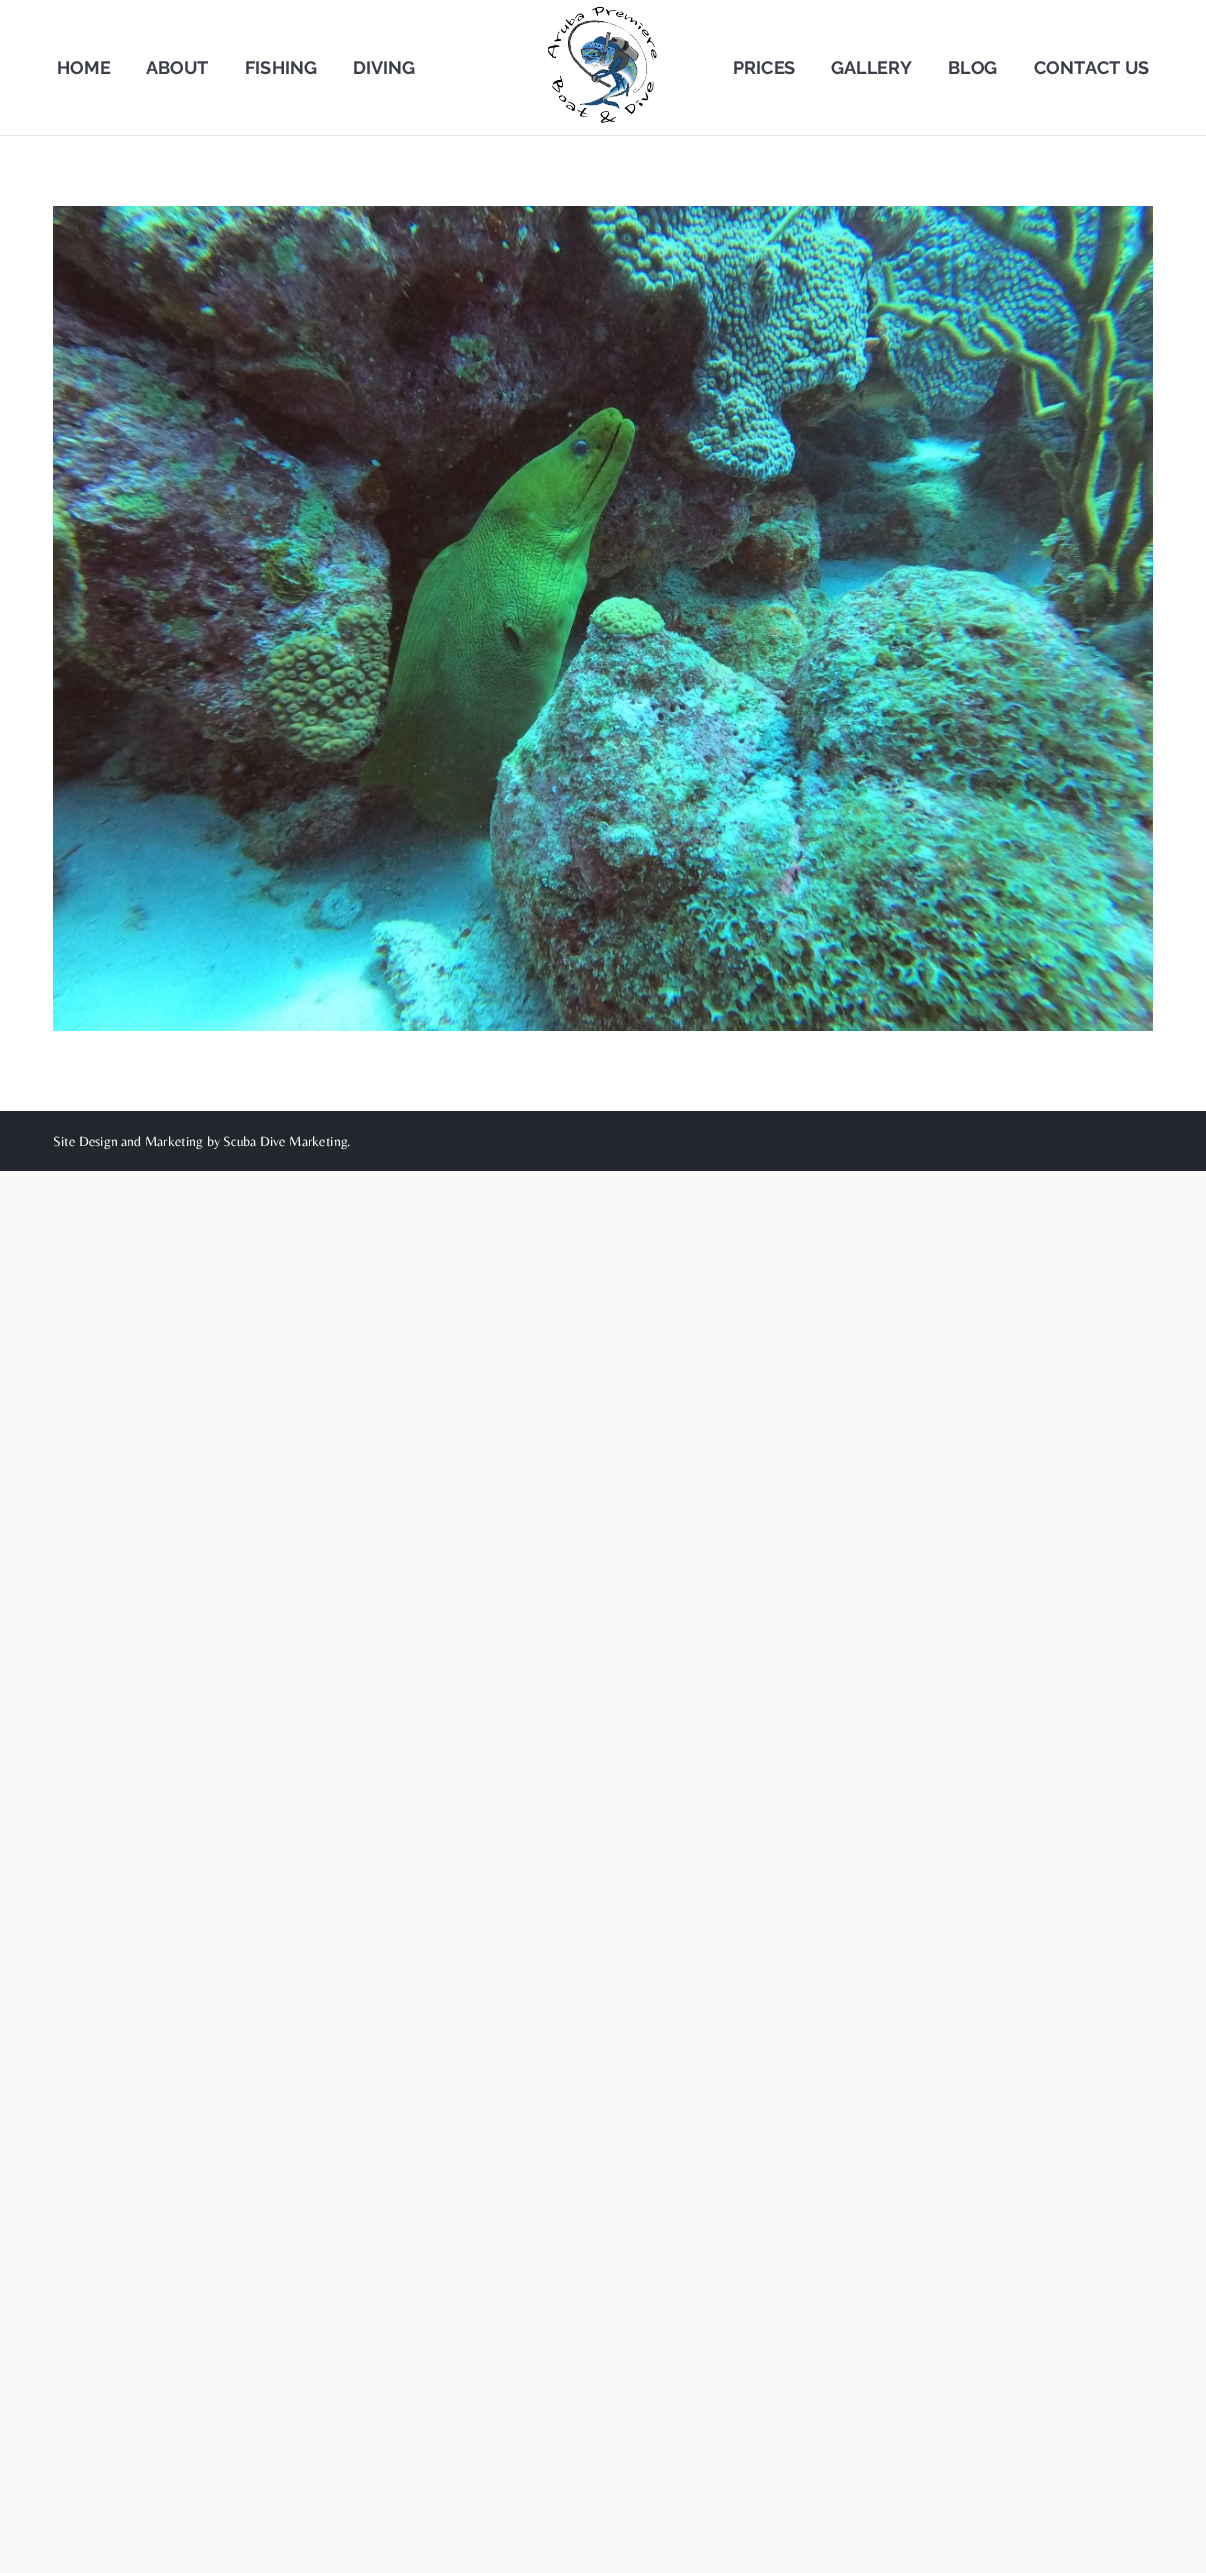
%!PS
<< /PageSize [1206 2573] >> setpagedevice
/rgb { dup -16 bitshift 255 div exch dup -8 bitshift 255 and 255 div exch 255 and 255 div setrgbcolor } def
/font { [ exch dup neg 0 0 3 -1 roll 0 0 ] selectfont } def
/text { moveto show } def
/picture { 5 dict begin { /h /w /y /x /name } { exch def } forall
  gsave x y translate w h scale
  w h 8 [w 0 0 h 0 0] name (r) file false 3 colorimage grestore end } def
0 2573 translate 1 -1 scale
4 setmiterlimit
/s1 { /Raleway-Bold 18 font 16#3B3F4A rgb } def
/s2 { /Belleza-Regular 14 font 16#FFFFFF rgb } def
16#F8F8F9 rgb
0 0 1206 2573 rectfill
16#FFFFFF rgb
0 0 1206 1111 rectfill
16#E6E7E9 rgb
0 135 1206 1 rectfill
s1
(HOME) 57 74 text
(ABOUT) 146 74 text
(FISHING) 245 74 text
(DIVING) 353 74 text
(pic1.raw) 547 6 110 117 picture
(PRICES) 733 74 text
(GALLERY) 831 74 text
(BLOG) 948 74 text
(CONTACT US) 1034 74 text
(pic2.raw) 53 206 1100 825 picture
16#23262D rgb
0 1111 1206 60 rectfill
s2
(Site Design and Marketing by Scuba Dive Marketing.) 53 1146 text
showpage
